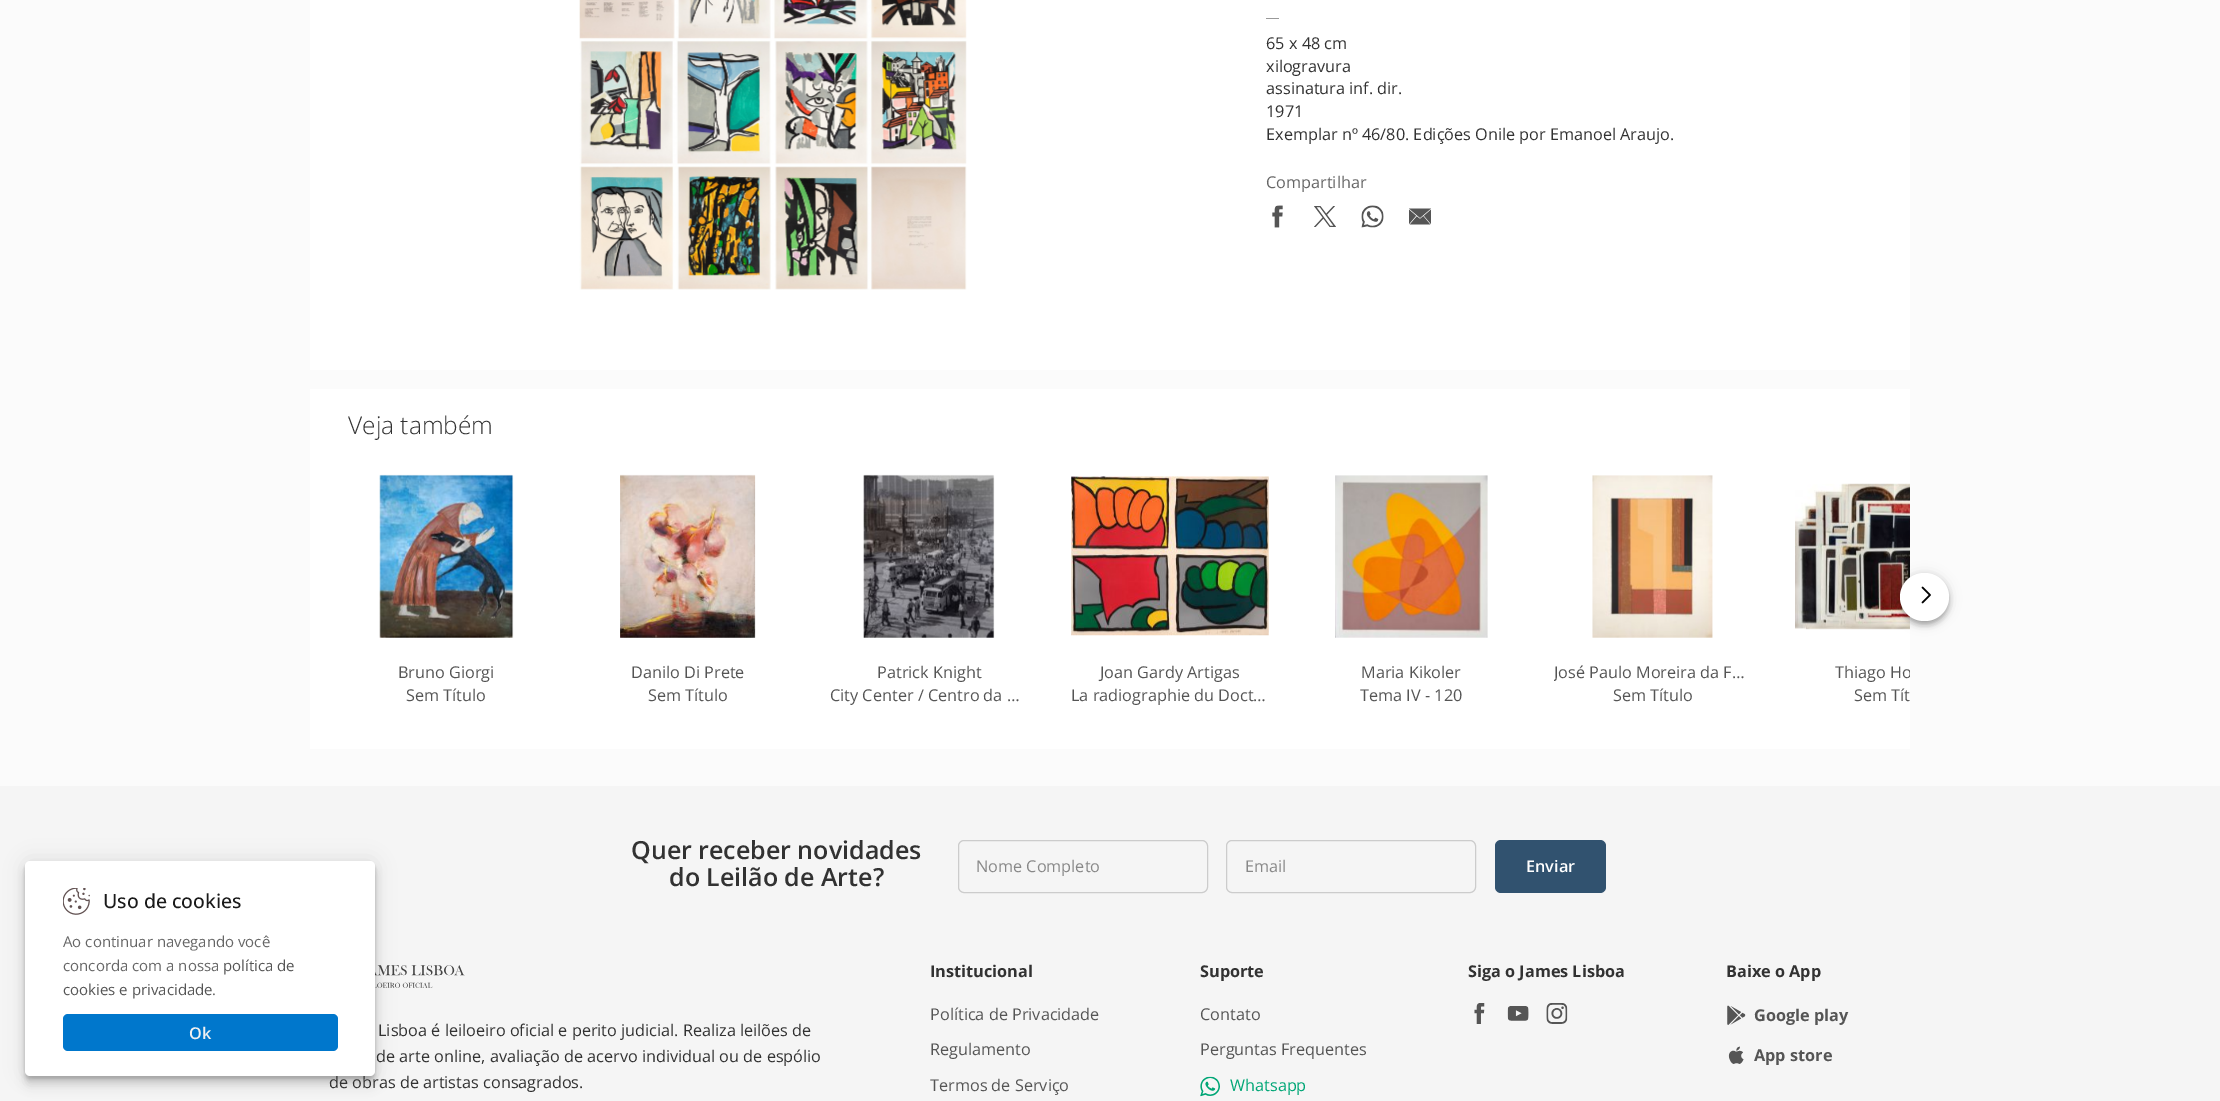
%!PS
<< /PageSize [2220 1101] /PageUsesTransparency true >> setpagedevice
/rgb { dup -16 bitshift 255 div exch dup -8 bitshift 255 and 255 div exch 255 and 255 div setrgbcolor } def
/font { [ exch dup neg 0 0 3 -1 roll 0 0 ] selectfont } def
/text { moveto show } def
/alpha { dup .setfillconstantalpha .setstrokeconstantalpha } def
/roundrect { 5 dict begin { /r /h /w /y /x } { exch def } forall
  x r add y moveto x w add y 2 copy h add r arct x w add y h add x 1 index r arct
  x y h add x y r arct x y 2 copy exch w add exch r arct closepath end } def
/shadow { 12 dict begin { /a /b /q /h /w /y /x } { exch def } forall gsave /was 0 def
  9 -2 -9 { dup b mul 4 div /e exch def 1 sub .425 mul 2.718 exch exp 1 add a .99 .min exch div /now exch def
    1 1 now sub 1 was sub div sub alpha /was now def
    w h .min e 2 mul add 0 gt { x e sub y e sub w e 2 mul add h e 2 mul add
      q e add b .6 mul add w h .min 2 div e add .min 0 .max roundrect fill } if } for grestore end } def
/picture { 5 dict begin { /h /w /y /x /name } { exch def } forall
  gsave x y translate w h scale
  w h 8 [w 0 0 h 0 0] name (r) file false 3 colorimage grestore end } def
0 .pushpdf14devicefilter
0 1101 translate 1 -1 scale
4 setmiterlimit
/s1 { /OpenSans-Regular 16.25 font 16#323232 rgb } def
/s2 { /OpenSans-Regular 16.25 font 16#666666 rgb } def
/s3 { /OpenSans-Light 24.5 font 16#323232 rgb } def
/s4 { /OpenSans-Regular 16.25 font 16#555555 rgb } def
/s5 { /OpenSans-Medium 19.5 font 16#1A1A1A rgb } def
/s6 { /OpenSans-Regular 15 font 16#666666 rgb } def
/s7 { /OpenSans-Regular 15 font 16#555555 rgb } def
/s8 { /OpenSans-SemiBold 16.25 font 16#F1F1F1 rgb } def
/s9 { /OpenSans-SemiBold 25 font 16#323232 rgb } def
/s10 { /OpenSans-Regular 16.25 font 16#888888 rgb } def
/s11 { /OpenSans-SemiBold 16.25 font 16#FFFFFF rgb } def
/s12 { /OpenSans-Bold 16.25 font 16#323232 rgb } def
/s13 { /OpenSans-Regular 16.25 font 16#00A676 rgb } def
/s14 { /OpenSans-Bold 16.25 font 16#555555 rgb } def
16#FBFBFB rgb
0 0 2220 1101 rectfill
16#FFFFFF rgb
310 0 1600 370 rectfill
(pic1.raw) 579 0 388 290 picture
16#999999 rgb
1266 18 13 1 rectfill
s1
(65 x 48 cm) 1266 49 text
(xilogravura) 1266 72 text
(assinatura inf. dir.) 1266 94 text
(1971) 1266 117 text
(Exemplar nº 46/80. Edições Onile por Emanoel Araujo.) 1266 140 text
s2
(Compartilhar) 1266 188 text
(pic2.raw) 1272 205 11 23 picture
(pic3.raw) 1314 206 22 21 picture
(pic4.raw) 1361 205 23 23 picture
(pic5.raw) 1409 208 22 17 picture
16#FFFFFF rgb
310 389 1600 360 rectfill
s3
(Veja também) 348 434 text
(pic13.raw) 1795 483 115 147 picture
16#000000 rgb
1900 578 49 48 24 3 0.14 shadow
1900 574 49 49 24.5 6 0.12 shadow
1901 576 47 47 23.5 2.5 0.2 shadow
16#FFFFFF rgb
1900 573 49 48 24 roundrect fill
(pic6.raw) 1921 586 10 18 picture
(pic7.raw) 379 474 135 164 picture
s4
(Bruno Giorgi) 398 678 text
(Sem Título) 406 701 text
(pic8.raw) 620 474 136 164 picture
(Danilo Di Prete) 631 678 text
(Sem Título) 648 701 text
(pic9.raw) 863 474 132 164 picture
(Patrick Knight) 877 678 text
(City Center / Centro da …) 830 701 text
(pic10.raw) 1071 476 198 160 picture
(Joan Gardy Artigas) 1100 678 text
(La radiographie du Doct…) 1071 701 text
(pic11.raw) 1335 475 153 163 picture
(Maria Kikoler) 1361 678 text
(Tema IV - 120) 1360 701 text
(pic12.raw) 1592 475 121 163 picture
gsave
1554 454 197 271 rectclip
(José Paulo Moreira da F…) 1554 678 text
grestore
(Sem Título) 1613 701 text
gsave
1795 454 115 271 rectclip
(Thiago Ho) 1835 678 text
grestore
(Sem Tít) 1854 701 text
16#F5F5F5 rgb
0 786 2220 315 rectfill
(pic15.raw) 375 965 90 23 picture
16#000000 rgb
25 861 350 215 5 10 0.1 shadow
25 871 350 215 5 5 0.1 shadow
25 866 350 215 5 2.5 0.1 shadow
25 864 350 215 5 1 0.1 shadow
s1
(de obras de artistas consagrados.) 329 1088 text
16#FFFFFF rgb
25 861 350 215 5 roundrect fill
(pic14.raw) 63 888 27 27 picture
s5
(Uso de cookies) 103 908 text
s6
(Ao continuar navegando você) 63 947 text
(concorda com a nossa) 63 971 text
s7
(política de) 223 971 text
(cookies e privacidade) 63 995 text
s6
(.) 212 995 text
16#0077CC rgb
63 1014 275 37 5 roundrect fill
s8
(Ok) 189 1039 text
s9
(Quer receber novidades) 631 859 text
(do Leilão de Arte?) 669 886 text
16#CCCCCC rgb
958.5 840.5 249 52 5.5 roundrect stroke
s10
(Nome Completo) 976 872 text
16#CCCCCC rgb
1226.5 840.5 249 52 5.5 roundrect stroke
s10
(Email) 1245 872 text
16#31526F rgb
1495 840 111 53 6 roundrect fill
s11
(Enviar) 1526 872 text
s1
(Lisboa é leiloeiro oficial e perito judicial. Realiza leilões de) 378 1036 text
(de arte online, avaliação de acervo individual ou de espólio) 376 1062 text
s12
(Institucional) 930 977 text
s4
(Política de Privacidade) 930 1020 text
(Regulamento) 930 1055 text
(Termos de Serviço) 930 1091 text
s12
(Suporte) 1200 977 text
s4
(Contato) 1200 1020 text
(Perguntas Frequentes) 1200 1055 text
(pic16.raw) 1200 1076 20 21 picture
s13
(Whatsapp) 1230 1091 text
s12
(Siga o James Lisboa) 1468 977 text
(pic17.raw) 1474 1003 11 21 picture
(pic18.raw) 1507 1006 22 15 picture
(pic19.raw) 1546 1003 22 21 picture
(Baixe o App) 1726 977 text
(pic20.raw) 1727 1005 19 20 picture
s14
(Google play) 1754 1021 text
(pic21.raw) 1728 1046 16 18 picture
(App store) 1754 1061 text
.poppdf14devicefilter showpage
